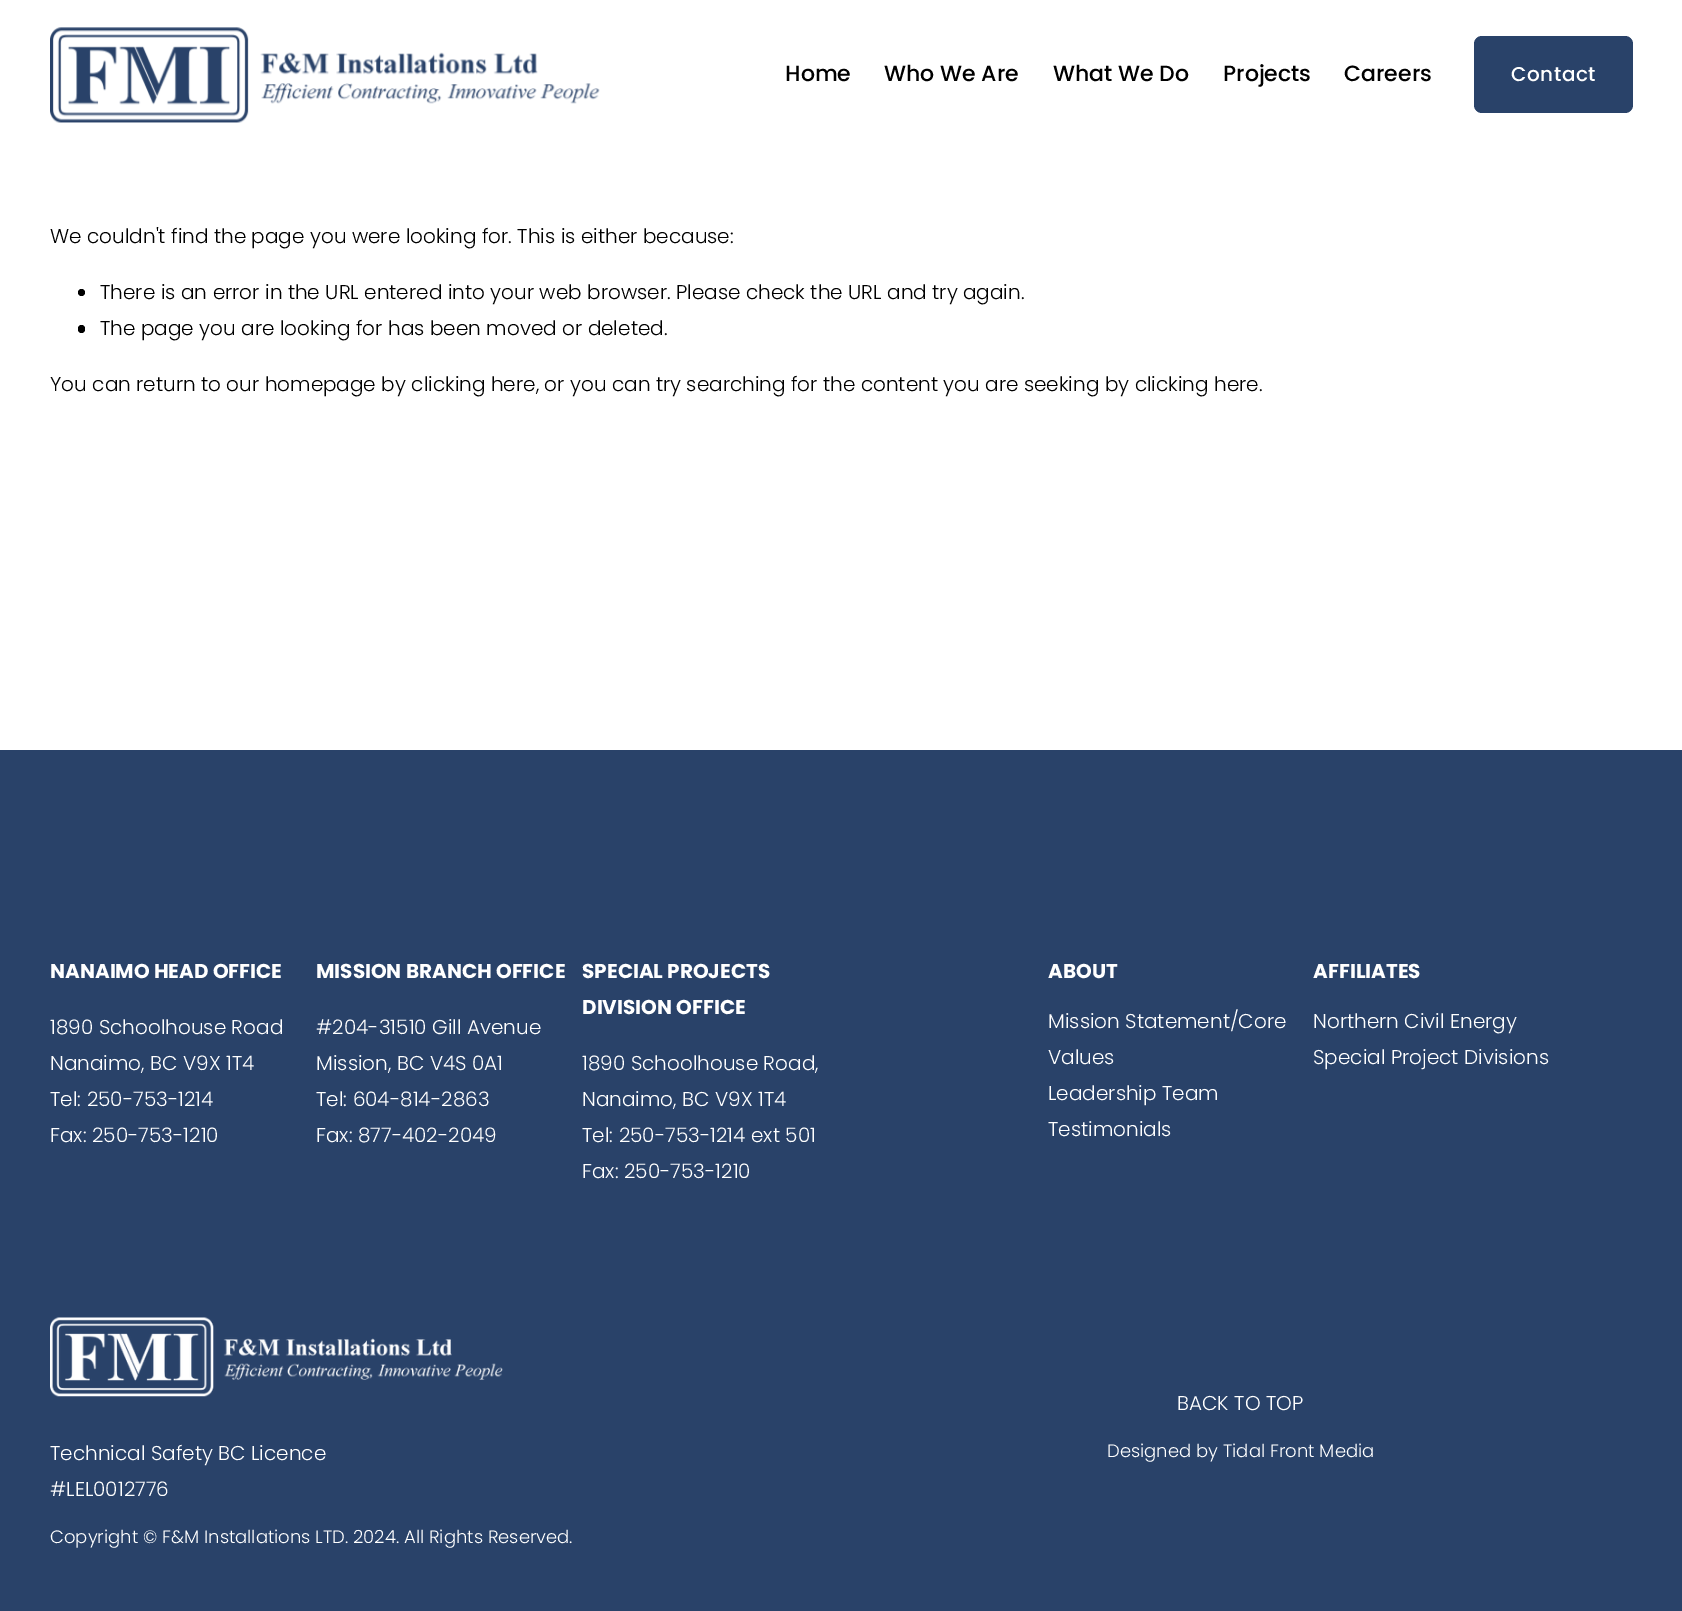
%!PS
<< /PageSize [1682 1611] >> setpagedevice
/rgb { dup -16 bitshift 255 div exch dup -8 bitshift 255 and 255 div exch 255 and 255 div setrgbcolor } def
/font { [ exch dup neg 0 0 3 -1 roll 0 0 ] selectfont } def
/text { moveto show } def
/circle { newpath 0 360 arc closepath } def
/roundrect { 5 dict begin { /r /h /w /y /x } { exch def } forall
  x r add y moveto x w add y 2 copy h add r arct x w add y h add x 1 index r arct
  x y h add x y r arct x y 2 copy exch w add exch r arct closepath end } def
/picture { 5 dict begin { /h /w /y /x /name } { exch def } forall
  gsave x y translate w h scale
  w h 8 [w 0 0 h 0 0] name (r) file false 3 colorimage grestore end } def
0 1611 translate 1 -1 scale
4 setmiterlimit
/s1 { /Poppins-Medium 22 font 16#000000 rgb } def
/s2 { /Poppins-Light 20 font 16#000000 rgb } def
/s3 { /Poppins-Bold 20 font 16#FFFFFF rgb } def
/s4 { /Poppins-Light 20 font 16#FFFFFF rgb } def
/s5 { /Poppins-Light 18 font 16#FFFFFF rgb } def
16#FFFFFF rgb
0 0 1682 1611 rectfill
(pic1.raw) 50 27 550 96 picture
s1
(Home) 785 81 text
(Who We Are) 884 81 text
(What We Do) 1053 81 text
(Projects) 1223 81 text
(Careers) 1344 81 text
16#294269 rgb
1474 36 159 77 8 roundrect fill
/Poppins-Medium 20 font
16#FFFFFF rgb
1511 81 moveto 0.5 0 (Contact) ashow
s2
(We couldn't find the page you were looking for. This is either because:) 50 243 text
81.5 292.5 3.5 circle fill
(There is an error in the URL entered into your web browser. Please check the URL and try again.) 100 299 text
78 325 7 8 3.5 roundrect fill
(The page you are looking for has been moved or deleted.) 100 335 text
(You can return to our homepage by clicking here, or you can try searching for the content you are seeking by clicking here.) 50 391 text
16#294269 rgb
0 750 1682 861 rectfill
s3
(NANAIMO HEAD OFFICE) 50 978 text
s4
(1890 Schoolhouse Road) 50 1034 text
(Nanaimo, BC V9X 1T4) 50 1070 text
(Tel: 250-753-1214) 50 1106 text
(Fax: 250-753-1210) 50 1142 text
s3
(MISSION BRANCH OFFICE) 316 978 text
s4
(#204-31510 Gill Avenue) 316 1034 text
(Mission, BC V4S 0A1) 316 1070 text
(Tel: 604-814-2863) 316 1106 text
(Fax: 877-402-2049) 316 1142 text
s3
(SPECIAL PROJECTS) 582 978 text
(DIVISION OFFICE) 582 1014 text
s4
(1890 Schoolhouse Road,) 582 1070 text
(Nanaimo, BC V9X 1T4) 582 1106 text
(Tel: 250-753-1214 ext 501) 582 1142 text
(Fax: 250-753-1210) 582 1178 text
s3
(ABOUT) 1048 978 text
(AFFILIATES) 1313 978 text
s4
(Mission Statement/Core) 1048 1028 text
(Values) 1048 1064 text
(Leadership Team) 1048 1100 text
(Testimonials) 1048 1136 text
(Northern Civil Energy) 1313 1028 text
(Special Project Divisions) 1313 1064 text
(pic2.raw) 50 1317 453 80 picture
(BACK TO TOP) 1177 1410 text
(Technical Safety BC Licence) 50 1460 text
(#LEL0012776) 50 1496 text
s5
(Designed by Tidal Front Media) 1107 1457 text
(Copyright © F&M Installations LTD. 2024. All Rights Reserved.) 50 1543 text
showpage
